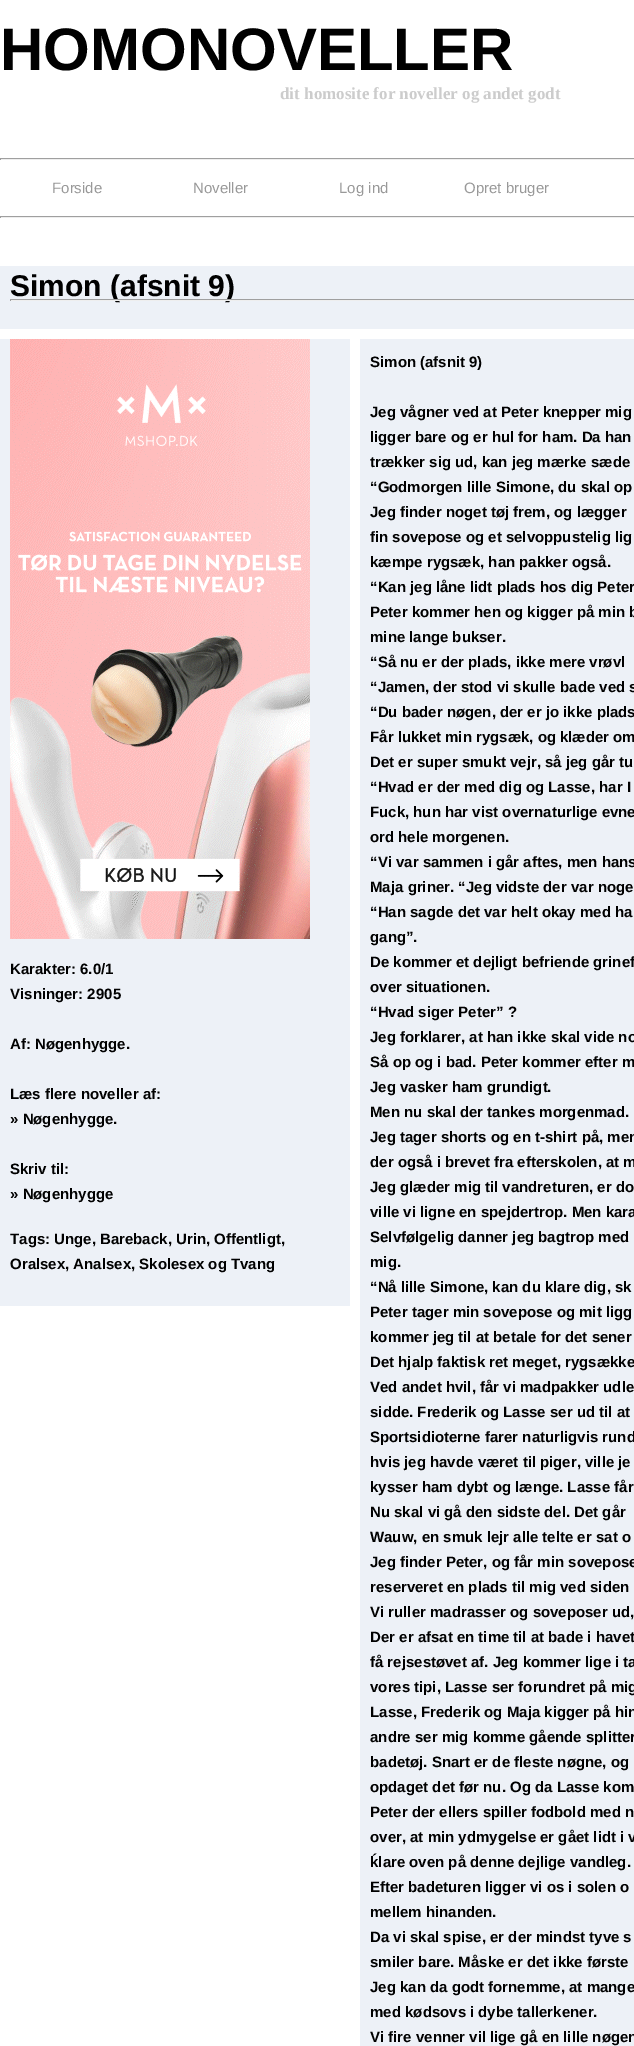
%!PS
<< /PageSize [634 2046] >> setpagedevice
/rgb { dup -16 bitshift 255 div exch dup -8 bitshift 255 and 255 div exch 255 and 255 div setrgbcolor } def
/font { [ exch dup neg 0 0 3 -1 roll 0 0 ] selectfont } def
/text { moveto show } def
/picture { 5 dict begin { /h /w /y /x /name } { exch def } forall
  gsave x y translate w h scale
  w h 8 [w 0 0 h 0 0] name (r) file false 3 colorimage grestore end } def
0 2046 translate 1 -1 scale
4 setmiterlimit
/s1 { /LiberationSans-Bold 60 font 16#000000 rgb } def
/s2 { /LiberationSerif-Bold 17 font 16#CCCCCC rgb } def
/s3 { /LiberationSans-Regular 15 font 16#999999 rgb } def
/s4 { /LiberationSans-Bold 30 font 16#000000 rgb } def
/s5 { /LiberationSans-Bold 15 font 16#000000 rgb } def
16#FFFFFF rgb
0 0 634 2046 rectfill
s1
(HOMONOVELLER) 0 70 text
s2
(dit homosite for noveller og andet godt) 280 99 text
16#9F9F9F rgb
0 158 634 1 rectfill
16#EEEEEE rgb
0 159 634 1 rectfill
16#9F9F9F rgb
0 158 1 2 rectfill
s3
(Forside) 52 193 text
(Noveller) 193 193 text
(Log ind) 339 193 text
(Opret bruger) 464 193 text
16#9F9F9F rgb
0 216 634 1 rectfill
16#EEEEEE rgb
0 217 634 1 rectfill
16#9F9F9F rgb
0 216 1 2 rectfill
16#EDF1F7 rgb
0 266 634 63 rectfill
s4
(Simon \(afsnit 9\)) 10 296 text
16#9F9F9F rgb
10 299 624 1 rectfill
16#EEEEEE rgb
10 300 624 1 rectfill
16#9F9F9F rgb
10 299 1 2 rectfill
16#EDF1F7 rgb
0 339 350 967 rectfill
(pic1.raw) 10 339 300 600 picture
s5
(Karakter: 6.0/1) 10 974 text
(Visninger: 2905) 10 999 text
(Af: Nøgenhygge.) 10 1049 text
(Læs flere noveller af:) 10 1099 text
(» Nøgenhygge.) 10 1124 text
(Skriv til:) 10 1174 text
(» Nøgenhygge) 10 1199 text
(Tags: Unge, Bareback, Urin, Offentligt,) 10 1244 text
(Oralsex, Analsex, Skolesex og Tvang) 10 1269 text
16#EDF1F7 rgb
360 339 274 1707 rectfill
s5
(Simon \(afsnit 9\)) 370 367 text
(Jeg vågner ved at Peter knepper mig) 370 417 text
(ligger bare og er hul for ham. Da han) 370 442 text
(trækker sig ud, kan jeg mærke sæde) 370 467 text
(“Godmorgen lille Simone, du skal op) 370 492 text
(Jeg finder noget tøj frem, og lægger) 370 517 text
(fin sovepose og et selvoppustelig lig) 370 542 text
(kæmpe rygsæk, han pakker også.) 370 567 text
(“Kan jeg låne lidt plads hos dig Peter) 370 592 text
(Peter kommer hen og kigger på min b) 370 617 text
(mine lange bukser.) 370 642 text
(“Så nu er der plads, ikke mere vrøvl) 370 667 text
(“Jamen, der stod vi skulle bade ved s) 370 692 text
(“Du bader nøgen, der er jo ikke plads) 370 717 text
(Får lukket min rygsæk, og klæder om) 370 742 text
(Det er super smukt vejr, så jeg går tu) 370 767 text
(“Hvad er der med dig og Lasse, har I) 370 792 text
(Fuck, hun har vist overnaturlige evne) 370 817 text
(ord hele morgenen.) 370 842 text
(“Vi var sammen i går aftes, men hans) 370 867 text
(Maja griner. “Jeg vidste der var noge) 370 892 text
(“Han sagde det var helt okay med ha) 370 917 text
(gang”.) 370 942 text
(De kommer et dejligt befriende grinef) 370 967 text
(over situationen.) 370 992 text
(“Hvad siger Peter” ?) 370 1017 text
(Jeg forklarer, at han ikke skal vide no) 370 1042 text
(Så op og i bad. Peter kommer efter m) 370 1067 text
(Jeg vasker ham grundigt.) 370 1092 text
(Men nu skal der tankes morgenmad.) 370 1117 text
(Jeg tager shorts og en t-shirt på, men) 370 1142 text
(der også i brevet fra efterskolen, at m) 370 1167 text
(Jeg glæder mig til vandreturen, er do) 370 1192 text
(ville vi ligne en spejdertrop. Men kara) 370 1217 text
(Selvfølgelig danner jeg bagtrop med) 370 1242 text
(mig.) 370 1267 text
(“Nå lille Simone, kan du klare dig, sk) 370 1292 text
(Peter tager min sovepose og mit ligg) 370 1317 text
(kommer jeg til at betale for det sener) 370 1342 text
(Det hjalp faktisk ret meget, rygsække) 370 1367 text
(Ved andet hvil, får vi madpakker udle) 370 1392 text
(sidde. Frederik og Lasse ser ud til at) 370 1417 text
(Sportsidioterne farer naturligvis rund) 370 1442 text
(hvis jeg havde været til piger, ville je) 370 1467 text
(kysser ham dybt og længe. Lasse får) 370 1492 text
(Nu skal vi gå den sidste del. Det går) 370 1517 text
(Wauw, en smuk lejr alle telte er sat o) 370 1542 text
(Jeg finder Peter, og får min sovepose) 370 1567 text
(reserveret en plads til mig ved siden) 370 1592 text
(Vi ruller madrasser og soveposer ud,) 370 1617 text
(Der er afsat en time til at bade i havet) 370 1642 text
(få rejsestøvet af. Jeg kommer lige i ta) 370 1667 text
(vores tipi, Lasse ser forundret på mig) 370 1692 text
(Lasse, Frederik og Maja kigger på hin) 370 1717 text
(andre ser mig komme gående splitter) 370 1742 text
(badetøj. Snart er de fleste nøgne, og) 370 1767 text
(opdaget det før nu. Og da Lasse kom) 370 1792 text
(Peter der ellers spiller fodbold med n) 370 1817 text
(over, at min ydmygelse er gået lidt i v) 370 1842 text
(ḱlare oven på denne dejlige vandleg.) 370 1867 text
(Efter badeturen ligger vi os i solen o) 370 1892 text
(mellem hinanden.) 370 1917 text
(Da vi skal spise, er der mindst tyve s) 370 1942 text
(smiler bare. Måske er det ikke første) 370 1967 text
(Jeg kan da godt fornemme, at mange) 370 1992 text
(med kødsovs i dybe tallerkener.) 370 2017 text
(Vi fire venner vil lige gå en lille nøgen) 370 2042 text
showpage
